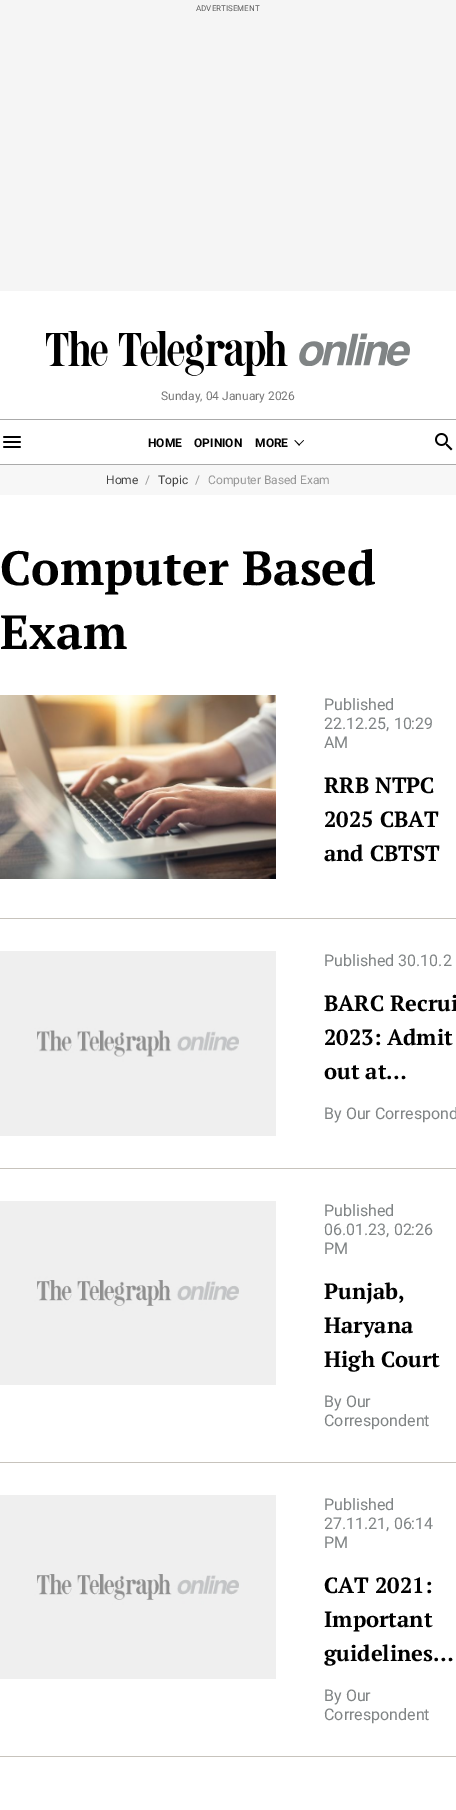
%!PS
<< /PageSize [456 1810] >> setpagedevice
/rgb { dup -16 bitshift 255 div exch dup -8 bitshift 255 and 255 div exch 255 and 255 div setrgbcolor } def
/font { [ exch dup neg 0 0 3 -1 roll 0 0 ] selectfont } def
/text { moveto show } def
/picture { 5 dict begin { /h /w /y /x /name } { exch def } forall
  gsave x y translate w h scale
  w h 8 [w 0 0 h 0 0] name (r) file false 3 colorimage grestore end } def
0 1810 translate 1 -1 scale
4 setmiterlimit
/s1 { /Roboto-Regular 8 font 16#5D5D5D rgb } def
/s2 { /Roboto-Regular 12 font 16#777777 rgb } def
/s3 { /Roboto-Bold 12 font 16#000000 rgb } def
/s4 { /Roboto-Regular 12 font 16#444444 rgb } def
/s5 { /Roboto-Regular 12 font 16#979797 rgb } def
/s6 { /PTSerif-Bold 48 font 16#000000 rgb } def
/s7 { /Roboto-Regular 16 font 16#808485 rgb } def
/s8 { /PTSerif-Bold 22 font 16#000000 rgb } def
16#FFFFFF rgb
0 0 456 1810 rectfill
16#F5F5F5 rgb
0 0 456 291 rectfill
s1
(ADVERTISEMENT) 196 11 text
(pic1.raw) 46 331 364 45 picture
s2
(Sunday, 04 January 2026) 161 400 text
16#AAAAAA rgb
0 419 456 1 rectfill
0 464 456 1 rectfill
(pic2.raw) 3 436 18 12 picture
s3
(HOME) 148 447 text
(OPINION) 194 447 text
(MORE) 255 447 text
298.5 445 moveto 303.5 440 lineto 304 440.5 lineto 299 445.5 lineto closepath fill
294.5 440.5 moveto 295 440 lineto 300 445 lineto 299 445.5 lineto closepath fill
(pic3.raw) 435 433 18 18 picture
16#F7F7F7 rgb
0 465 456 30 rectfill
s4
(Home) 106 484 text
s5
(/) 145 484 text
s4
(Topic) 158 484 text
s5
(/) 195 484 text
(Computer Based Exam) 208 484 text
s6
(Computer Based) 0 585 text
(Exam) 0 649 text
16#C7C3BC rgb
0 918 456 1 rectfill
(pic4.raw) 0 695 276 184 picture
s7
(Published) 324 710 text
(22.12.25, 10:29) 324 729 text
(AM) 324 748 text
s8
(RRB NTPC) 324 793 text
(2025 CBAT) 324 827 text
(and CBTST) 324 861 text
16#C7C3BC rgb
0 1168 456 1 rectfill
(pic5.raw) 0 951 276 185 picture
s7
(Published 30.10.2) 324 966 text
s8
(BARC Recrui) 324 1011 text
(2023: Admit) 324 1045 text
(out at…) 324 1079 text
s7
(By Our Correspond) 324 1119 text
16#C7C3BC rgb
0 1462 456 1 rectfill
(pic6.raw) 0 1201 276 184 picture
s7
(Published) 324 1216 text
(06.01.23, 02:26) 324 1235 text
(PM) 324 1254 text
s8
(Punjab,) 324 1299 text
(Haryana) 324 1333 text
(High Court) 324 1367 text
s7
(By Our) 324 1407 text
(Correspondent) 324 1426 text
16#C7C3BC rgb
0 1756 456 1 rectfill
(pic6.raw) 0 1495 276 184 picture
s7
(Published) 324 1510 text
(27.11.21, 06:14) 324 1529 text
(PM) 324 1548 text
s8
(CAT 2021:) 324 1593 text
(Important) 324 1627 text
(guidelines…) 324 1661 text
s7
(By Our) 324 1701 text
(Correspondent) 324 1720 text
showpage
